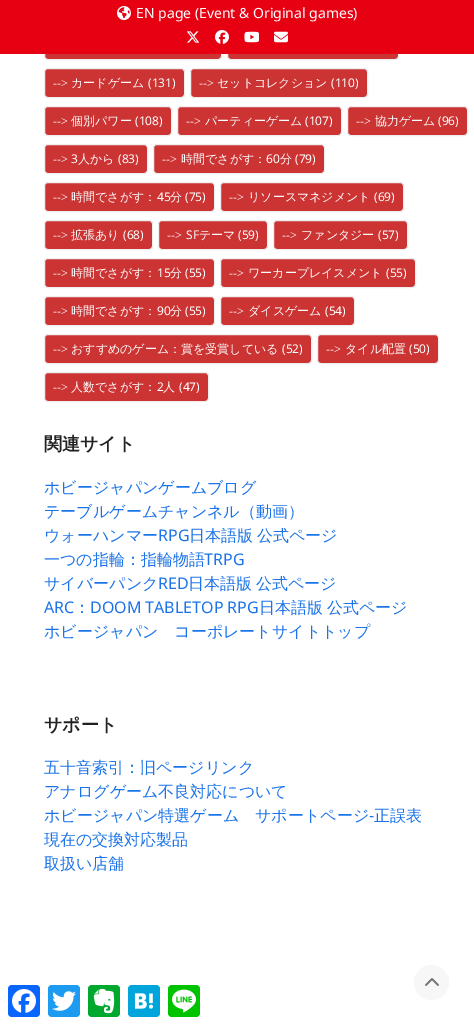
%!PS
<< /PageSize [474 1025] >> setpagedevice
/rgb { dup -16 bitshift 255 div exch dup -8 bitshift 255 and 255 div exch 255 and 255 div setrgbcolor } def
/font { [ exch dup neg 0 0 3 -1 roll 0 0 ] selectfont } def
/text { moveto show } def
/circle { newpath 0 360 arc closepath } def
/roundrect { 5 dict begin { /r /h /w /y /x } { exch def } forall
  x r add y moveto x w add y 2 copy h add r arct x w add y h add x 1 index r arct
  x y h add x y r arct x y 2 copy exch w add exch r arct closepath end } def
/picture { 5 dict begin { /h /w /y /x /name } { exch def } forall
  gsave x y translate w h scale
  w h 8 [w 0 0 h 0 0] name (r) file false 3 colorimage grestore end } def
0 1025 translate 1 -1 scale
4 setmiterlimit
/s1 { /NotoSans-Regular 14 font 16#FFFFFF rgb } def
/s2 { /LiberationSerif-Regular 12 font 16#FFFFFF rgb } def
/s3 { /WenQuanYiZenHei-Medium 12 font 16#FFFFFF rgb } def
/s4 { /NotoSans-Regular 12 font 16#FFFFFF rgb } def
/s5 { /WenQuanYiZenHei-Bold 18 font 16#222222 rgb } def
/s6 { /WenQuanYiZenHei-Medium 16 font 16#1A73E8 rgb } def
/s7 { /NotoSans-Regular 16 font 16#1A73E8 rgb } def
16#FFFFFF rgb
0 0 474 1025 rectfill
16#CC3333 rgb
44.5 30.5 177 29 3.5 roundrect gsave fill grestore
16#EEEEEE rgb
stroke
16#CC3333 rgb
227.5 30.5 171 29 3.5 roundrect gsave fill grestore
16#EEEEEE rgb
stroke
16#E60012 rgb
0 0 474 54 rectfill
(pic1.raw) 117 6 14 14 picture
s1
(EN page \(Event & Original games\)) 136 18 text
(pic2.raw) 186 31 14 12 picture
(pic3.raw) 215 30 14 14 picture
(pic4.raw) 244 31 15 12 picture
(pic5.raw) 274 31 14 12 picture
16#CC3333 rgb
44.5 68.5 140 29 3.5 roundrect gsave fill grestore
16#EEEEEE rgb
stroke
s2
(-->) 53 87 text
s3
(カードゲーム) 71 87 text
s4
(\(131\)) 148 87 text
16#CC3333 rgb
190.5 68.5 177 29 3.5 roundrect gsave fill grestore
16#EEEEEE rgb
stroke
s2
(-->) 199 87 text
s3
(セットコレクション) 217 87 text
s4
(\(110\)) 331 87 text
16#CC3333 rgb
44.5 106.5 127 29 3.5 roundrect gsave fill grestore
16#EEEEEE rgb
stroke
s2
(-->) 53 125 text
s3
(個別パワー) 71 125 text
s4
(\(108\)) 135 125 text
16#CC3333 rgb
177.5 106.5 164 29 3.5 roundrect gsave fill grestore
16#EEEEEE rgb
stroke
s2
(-->) 186 125 text
s3
(パーティーゲーム) 205 125 text
s4
(\(107\)) 305 125 text
16#CC3333 rgb
347.5 106.5 120 29 3.5 roundrect gsave fill grestore
16#EEEEEE rgb
stroke
s2
(-->) 356 125 text
s3
(協力ゲーム) 375 125 text
s4
(\(96\)) 438 125 text
16#CC3333 rgb
44.5 144.5 103 29 3.5 roundrect gsave fill grestore
16#EEEEEE rgb
stroke
s2
(-->) 53 163 text
s4
(3) 71 163 text
s3
(人から) 78 163 text
s4
(\(83\)) 118 163 text
16#CC3333 rgb
153.5 144.5 171 29 3.5 roundrect gsave fill grestore
16#EEEEEE rgb
stroke
s2
(-->) 162 163 text
s3
(時間でさがす：) 181 163 text
s4
(60) 266 163 text
s3
(分) 280 163 text
s4
(\(79\)) 295 163 text
16#CC3333 rgb
44.5 182.5 170 29 3.5 roundrect gsave fill grestore
16#EEEEEE rgb
stroke
s2
(-->) 53 201 text
s3
(時間でさがす：) 71 201 text
s4
(45) 157 201 text
s3
(分) 170 201 text
s4
(\(75\)) 185 201 text
16#CC3333 rgb
220.5 182.5 183 29 3.5 roundrect gsave fill grestore
16#EEEEEE rgb
stroke
s2
(-->) 229 201 text
s3
(リソースマネジメント) 248 201 text
s4
(\(69\)) 374 201 text
16#CC3333 rgb
44.5 220.5 108 29 3.5 roundrect gsave fill grestore
16#EEEEEE rgb
stroke
s2
(-->) 53 239 text
s3
(拡張あり) 71 239 text
s4
(\(68\)) 123 239 text
16#CC3333 rgb
158.5 220.5 109 29 3.5 roundrect gsave fill grestore
16#EEEEEE rgb
stroke
s2
(-->) 167 239 text
s4
(SF) 186 239 text
s3
(テーマ) 199 239 text
s4
(\(59\)) 238 239 text
16#CC3333 rgb
273.5 220.5 134 29 3.5 roundrect gsave fill grestore
16#EEEEEE rgb
stroke
s2
(-->) 282 239 text
s3
(ファンタジー) 301 239 text
s4
(\(57\)) 378 239 text
16#CC3333 rgb
44.5 258.5 170 29 3.5 roundrect gsave fill grestore
16#EEEEEE rgb
stroke
s2
(-->) 53 277 text
s3
(時間でさがす：) 71 277 text
s4
(15) 157 277 text
s3
(分) 170 277 text
s4
(\(55\)) 185 277 text
16#CC3333 rgb
220.5 258.5 195 29 3.5 roundrect gsave fill grestore
16#EEEEEE rgb
stroke
s2
(-->) 229 277 text
s3
(ワーカープレイスメント) 248 277 text
s4
(\(55\)) 386 277 text
16#CC3333 rgb
44.5 296.5 170 29 3.5 roundrect gsave fill grestore
16#EEEEEE rgb
stroke
s2
(-->) 53 315 text
s3
(時間でさがす：) 71 315 text
s4
(90) 157 315 text
s3
(分) 170 315 text
s4
(\(55\)) 185 315 text
16#CC3333 rgb
220.5 296.5 134 29 3.5 roundrect gsave fill grestore
16#EEEEEE rgb
stroke
s2
(-->) 229 315 text
s3
(ダイスゲーム) 248 315 text
s4
(\(54\)) 325 315 text
16#CC3333 rgb
44.5 334.5 267 29 3.5 roundrect gsave fill grestore
16#EEEEEE rgb
stroke
s2
(-->) 53 353 text
s3
(おすすめのゲーム：賞を受賞している) 71 353 text
s4
(\(52\)) 282 353 text
16#CC3333 rgb
317.5 334.5 121 29 3.5 roundrect gsave fill grestore
16#EEEEEE rgb
stroke
s2
(-->) 326 353 text
s3
(タイル配置) 345 353 text
s4
(\(50\)) 409 353 text
16#CC3333 rgb
44.5 372.5 164 29 3.5 roundrect gsave fill grestore
16#EEEEEE rgb
stroke
s2
(-->) 53 391 text
s3
(人数でさがす：) 71 391 text
s4
(2) 157 391 text
s3
(人) 163 391 text
s4
(\(47\)) 179 391 text
s5
(関連サイト) 44 450 text
s6
(ホビージャパンゲームブログ) 44 493 text
(テーブルゲームチャンネル（動画）) 44 517 text
(ウォーハンマー) 44 541 text
s7
(RPG) 158 541 text
/WenQuanYiZenHei-Medium 16 font
189 541 moveto -1 0 32 (日本語版 公式ページ) widthshow
(一つの指輪：指輪物語) 44 565 text
s7
(TRPG) 204 565 text
s6
(サイバーパンク) 44 589 text
s7
(RED) 158 589 text
/WenQuanYiZenHei-Medium 16 font
188 589 moveto -1 0 32 (日本語版 公式ページ) widthshow
s7
(ARC) 44 613 text
s6
(：) 74 613 text
s7
(DOOM TABLETOP RPG) 90 613 text
s6
(日本語版) 259 613 text
(公式ページ) 327 613 text
(ホビージャパン　コーポレートサイトトップ) 44 637 text
s5
(サポート) 44 731 text
s6
(五十音索引：旧ページリンク) 44 773 text
(アナログゲーム不良対応について) 44 797 text
(ホビージャパン特選ゲーム　サポートページ) 44 821 text
s7
(-) 369 821 text
s6
(正誤表) 374 821 text
(現在の交換対応製品) 44 845 text
(取扱い店舗) 44 869 text
16#F7F7F7 rgb
431.5 982.5 17.5 circle fill
(pic6.raw) 425 978 14 8 picture
16#0866FF rgb
8 985 32 32 4 roundrect fill
(pic7.raw) 12 989 24 24 picture
16#1D9BF0 rgb
48 985 32 32 4 roundrect fill
(pic8.raw) 52 991 24 20 picture
16#00A82D rgb
88 985 32 32 4 roundrect fill
(pic9.raw) 93 988 22 26 picture
16#00A6DB rgb
128 985 32 32 4 roundrect fill
(pic10.raw) 134 993 19 16 picture
16#00C300 rgb
168 985 32 32 4 roundrect fill
(pic11.raw) 172 989 24 24 picture
showpage
